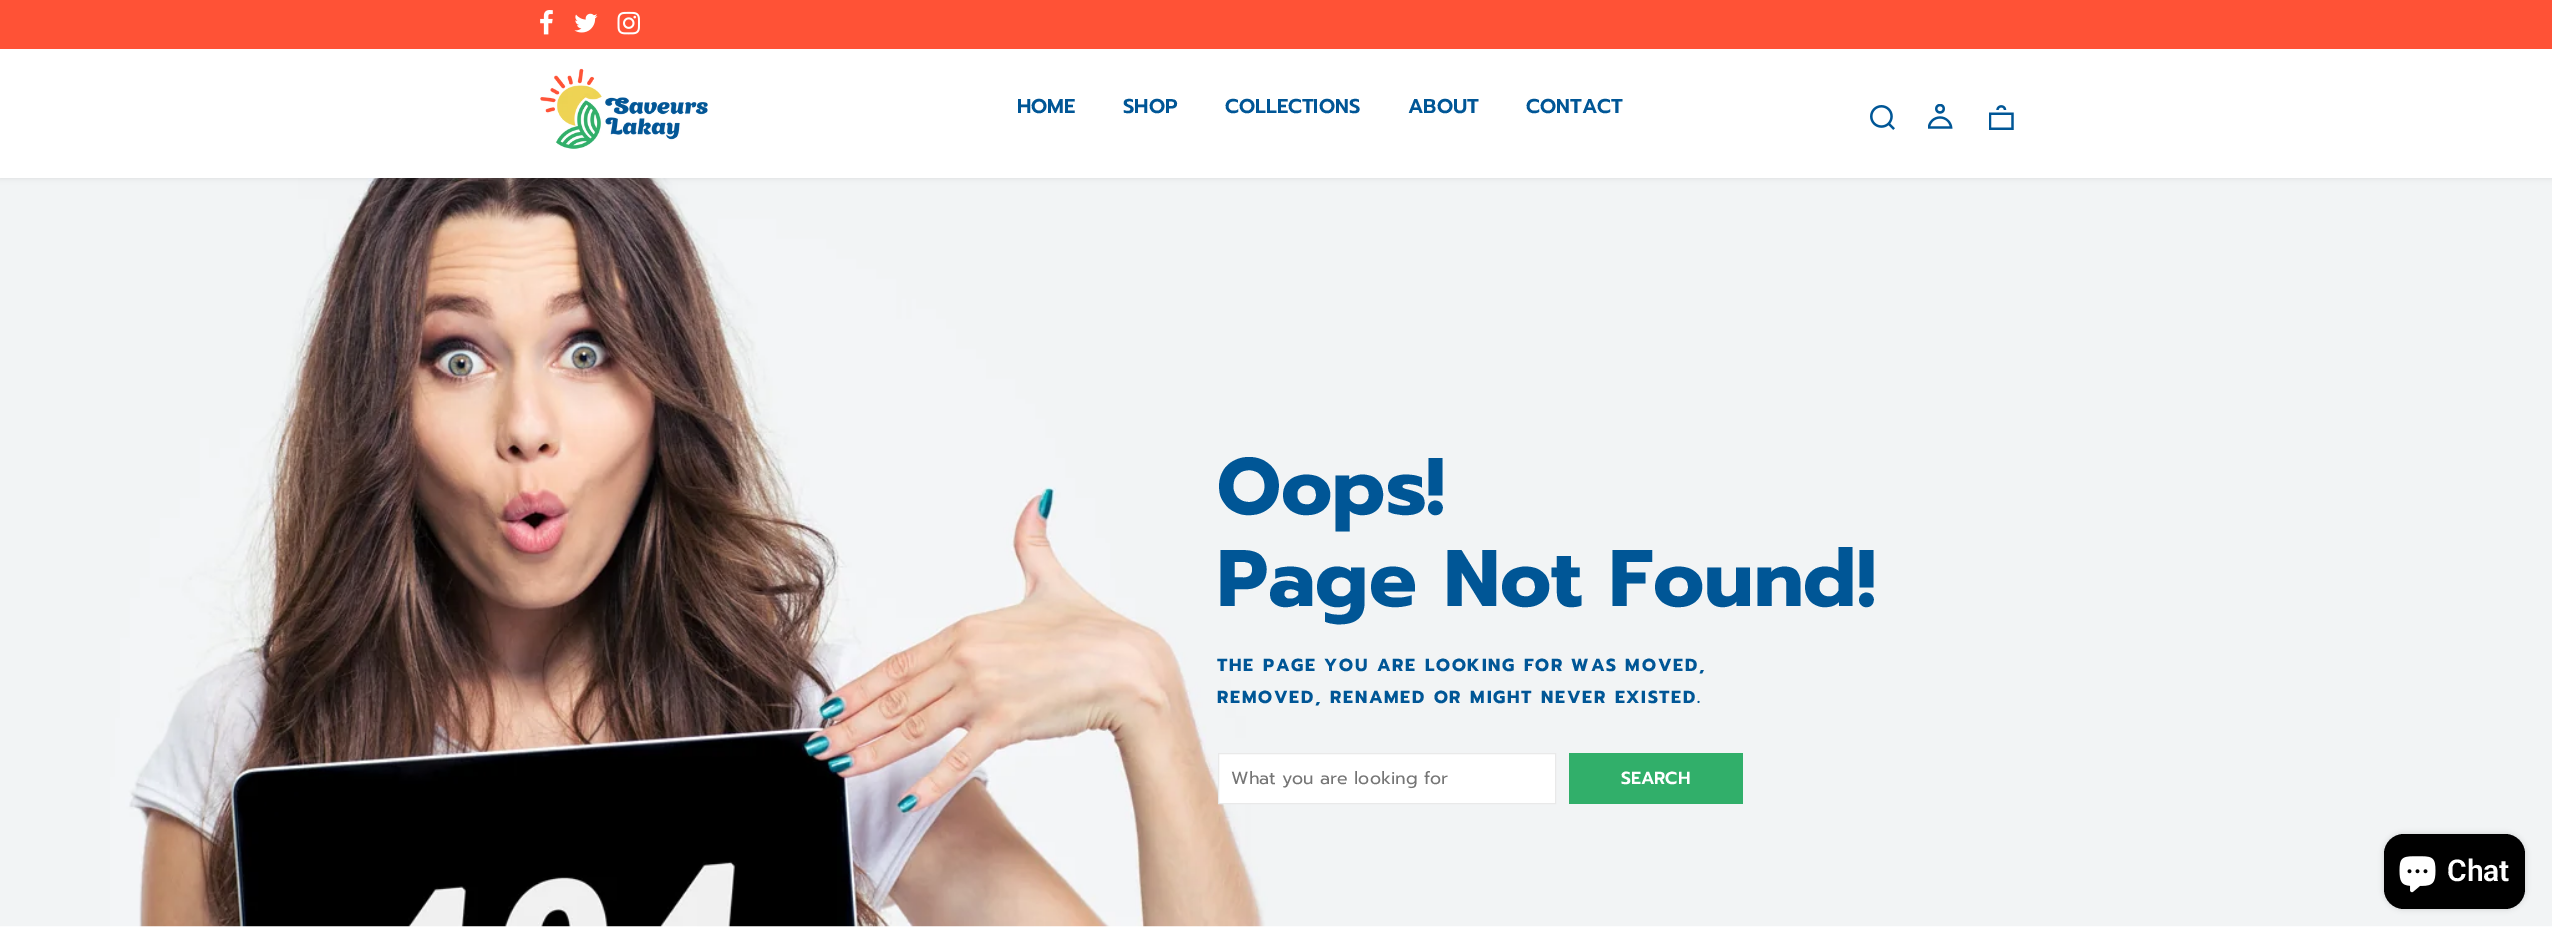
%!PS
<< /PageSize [2552 934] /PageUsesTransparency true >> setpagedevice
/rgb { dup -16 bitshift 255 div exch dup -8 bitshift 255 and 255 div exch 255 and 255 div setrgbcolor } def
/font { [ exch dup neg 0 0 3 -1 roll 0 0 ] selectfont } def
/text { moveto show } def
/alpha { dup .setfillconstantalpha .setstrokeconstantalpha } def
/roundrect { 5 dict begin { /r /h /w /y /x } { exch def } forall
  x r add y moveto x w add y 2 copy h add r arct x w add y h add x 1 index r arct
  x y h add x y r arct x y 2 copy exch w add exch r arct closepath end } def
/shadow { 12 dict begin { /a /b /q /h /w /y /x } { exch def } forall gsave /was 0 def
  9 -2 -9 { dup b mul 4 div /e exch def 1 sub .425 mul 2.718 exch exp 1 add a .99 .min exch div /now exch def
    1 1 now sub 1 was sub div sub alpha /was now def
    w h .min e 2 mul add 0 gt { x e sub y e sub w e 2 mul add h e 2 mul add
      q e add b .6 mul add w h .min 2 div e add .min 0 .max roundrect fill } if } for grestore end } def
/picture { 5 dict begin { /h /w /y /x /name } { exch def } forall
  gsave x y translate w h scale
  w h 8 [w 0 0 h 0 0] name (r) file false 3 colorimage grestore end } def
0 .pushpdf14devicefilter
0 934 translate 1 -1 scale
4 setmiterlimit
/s1 { /Prompt-SemiBold 20 font 16#005696 rgb } def
/s2 { /Prompt-Bold 80 font 16#005696 rgb } def
/s3 { /Prompt-Regular 17.5 font 16#757575 rgb } def
/s4 { /Prompt-SemiBold 17.5 font 16#FFFFFF rgb } def
/s5 { /Roboto-SemiBold 30 font 16#FFFFFF rgb } def
16#FFFFFF rgb
0 0 2552 934 rectfill
(pic8.raw) 0 178 2552 749 picture
16#000000 rgb
0 0 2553 178 0 3 0.1 shadow
16#FFFFFF rgb
0 49 2552 129 rectfill
16#FF5236 rgb
0 0 2552 49 rectfill
(pic1.raw) 540 10 13 25 picture
(pic2.raw) 574 13 24 20 picture
(pic3.raw) 617 11 23 24 picture
(pic4.raw) 540 68 168 81 picture
s1
(HOME) 1017 113 text
(SHOP) 1123 113 text
(COLLECTIONS) 1225 113 text
(ABOUT) 1408 113 text
(CONTACT) 1526 113 text
(pic5.raw) 1870 105 25 25 picture
(pic6.raw) 1928 104 25 25 picture
(pic7.raw) 1989 105 25 25 picture
s2
(Oops!) 1217 514 text
(Page Not Found!) 1217 606 text
/Prompt-Bold 17.5 font
1217 671 moveto 1.75 0 (THE PAGE YOU ARE LOOKING FOR WAS MOVED,) ashow
1217 703 moveto 1.75 0 (REMOVED, RENAMED OR MIGHT NEVER EXISTED.) ashow
16#FFFFFF rgb
1218.5 753.5 moveto 1555.5 753.5 lineto 1555.5 803.5 lineto 1218.5 803.5 lineto closepath gsave fill grestore
16#E9E9E9 rgb
stroke
s3
(What you are looking for) 1231 784 text
16#31AF6A rgb
1569 753 174 51 rectfill
s4
(SEARCH) 1621 784 text
16#000000 rgb
2384 834 141 75 20 3 0.15 shadow
2384 834 141 75 20 roundrect fill
(pic9.raw) 2399 856 37 37 picture
s5
(Chat) 2447 881 text
.poppdf14devicefilter showpage
